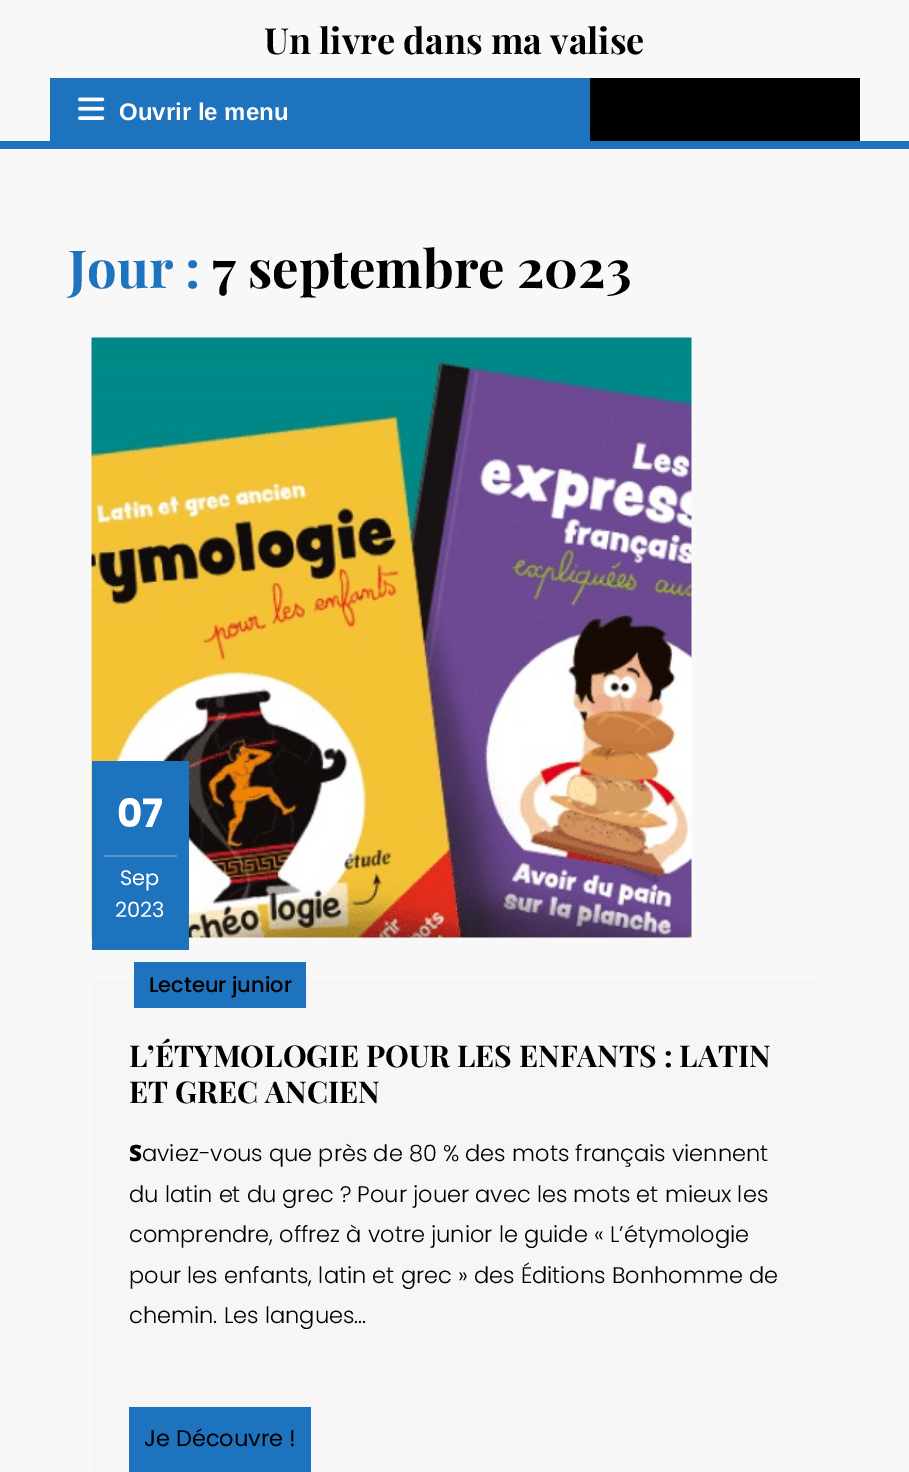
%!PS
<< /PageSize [909 1472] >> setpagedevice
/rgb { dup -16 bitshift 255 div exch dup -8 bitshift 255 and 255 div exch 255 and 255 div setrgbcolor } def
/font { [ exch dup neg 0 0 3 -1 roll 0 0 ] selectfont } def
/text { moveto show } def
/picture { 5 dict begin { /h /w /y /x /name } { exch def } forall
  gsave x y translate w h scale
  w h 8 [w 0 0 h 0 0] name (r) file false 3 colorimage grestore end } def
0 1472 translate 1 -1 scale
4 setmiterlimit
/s1 { /PlayfairDisplay-Bold 36 font 16#000000 rgb } def
/s2 { /LiberationSans-Bold 24 font 16#FFFFFF rgb } def
/s3 { /PlayfairDisplay-Bold 52.5 font 16#1E73BE rgb } def
/s4 { /PlayfairDisplay-Bold 52.5 font 16#000000 rgb } def
/s5 { /Poppins-Bold 39 font 16#FFFFFF rgb } def
/s6 { /Poppins-Regular 21 font 16#FFFFFF rgb } def
/s7 { /Poppins-Medium 21 font 16#000000 rgb } def
/s8 { /PlayfairDisplay-Bold 30 font 16#000000 rgb } def
/s9 { /NotoSans-Black 22.5 font 16#000000 rgb } def
/s10 { /Poppins-Light 22.5 font 16#000000 rgb } def
/s11 { /Poppins-Regular 22.5 font 16#000000 rgb } def
16#F8F8F8 rgb
0 0 909 1472 rectfill
16#1E73BE rgb
0 141 909 8 rectfill
s1
(Un livre dans ma valise) 264 54 text
16#1E73BE rgb
50 78 540 63 rectfill
(pic1.raw) 78 97 27 23 picture
s2
(Ouvrir le menu) 119 120 text
16#000000 rgb
590 78 270 63 rectfill
s3
(Jour :) 68 288 text
s4
(7 septembre 2023) 212 288 text
(pic2.raw) 91 337 601 601 picture
16#1E73BE rgb
92 761 97 189 rectfill
s5
(07) 117 827 text
16#5696CE rgb
104 855 73 2 rectfill
s6
(Sep) 120 885 text
(2023) 115 917 text
16#F7F5F5 rgb
92 980 726 492 rectfill
16#1E73BE rgb
134 962 172 46 rectfill
s7
(Lecteur junior) 149 992 text
s8
(L’ÉTYMOLOGIE POUR LES ENFANTS : LATIN) 129 1067 text
(ET GREC ANCIEN) 129 1103 text
s9
(S) 129 1161 text
s10
(aviez-vous que près de 80 % des mots français viennent) 142 1161 text
(du latin et du grec ? Pour jouer avec les mots et mieux les) 129 1202 text
(comprendre, offrez à votre junior le guide « L’étymologie) 129 1242 text
(pour les enfants, latin et grec » des Éditions Bonhomme de) 129 1283 text
(chemin. Les langues...) 129 1323 text
16#1E73BE rgb
129 1407 182 65 rectfill
s11
(Je Découvre !) 144 1446 text
showpage
